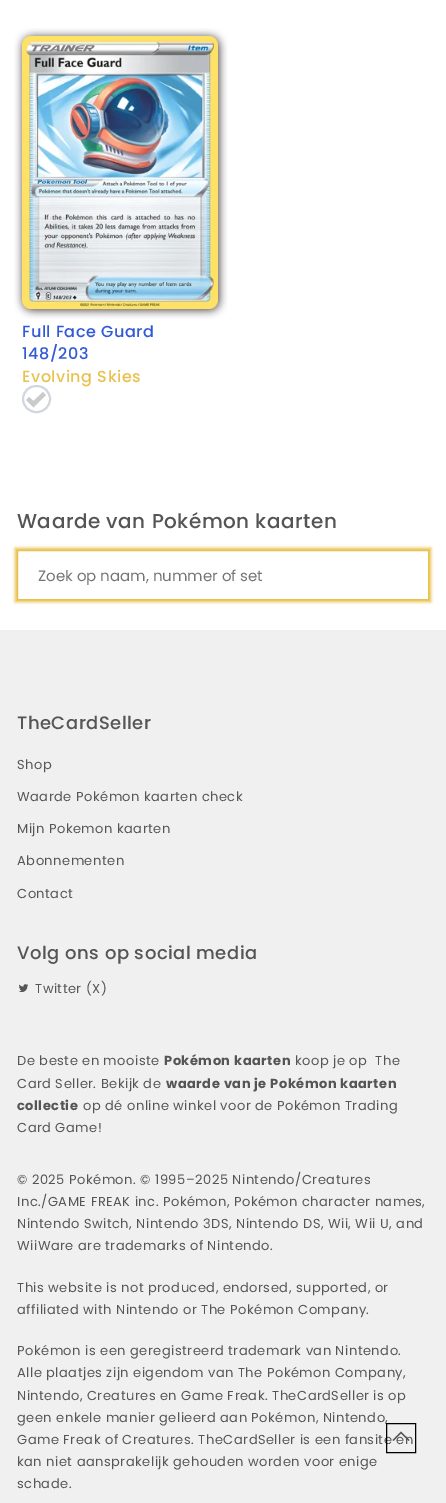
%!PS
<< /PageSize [446 1503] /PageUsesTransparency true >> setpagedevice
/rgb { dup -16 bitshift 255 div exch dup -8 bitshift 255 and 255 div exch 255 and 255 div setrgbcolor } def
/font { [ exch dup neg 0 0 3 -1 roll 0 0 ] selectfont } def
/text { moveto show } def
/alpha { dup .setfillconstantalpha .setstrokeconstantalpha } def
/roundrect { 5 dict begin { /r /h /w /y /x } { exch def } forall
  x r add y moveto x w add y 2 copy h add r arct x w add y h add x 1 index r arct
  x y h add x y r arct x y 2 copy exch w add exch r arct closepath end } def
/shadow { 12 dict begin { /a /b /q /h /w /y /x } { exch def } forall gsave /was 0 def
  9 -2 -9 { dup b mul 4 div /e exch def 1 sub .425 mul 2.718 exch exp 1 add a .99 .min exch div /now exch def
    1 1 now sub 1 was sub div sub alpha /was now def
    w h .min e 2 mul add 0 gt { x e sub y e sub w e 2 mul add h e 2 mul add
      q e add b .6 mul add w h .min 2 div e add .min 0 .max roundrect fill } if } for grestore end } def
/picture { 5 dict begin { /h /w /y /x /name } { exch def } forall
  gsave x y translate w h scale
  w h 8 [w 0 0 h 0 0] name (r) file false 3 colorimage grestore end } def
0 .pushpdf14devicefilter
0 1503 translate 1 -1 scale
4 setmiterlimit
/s1 { /Poppins-Regular 15 font 16#757575 rgb } def
16#FFFFFF rgb
0 0 446 1503 rectfill
(pic1.raw) 14 28 214 291 picture
/Poppins-Medium 16 font
16#315AD6 rgb
22 337 moveto 0.5 0 (Full Face Guard) ashow
22 359 moveto 0.5 0 (148/203) ashow
16#E8C14E rgb
22 382 moveto 0.5 0 (Evolving Skies) ashow
16#D2D6DF rgb
2 setlinewidth
23 386 27 26 13 roundrect stroke
16#CBCACA rgb
43 392 moveto 33.5 401 lineto 29 397 lineto 26 400 lineto 33.5 407.5 lineto 46 395 lineto closepath fill
/Poppins-Medium 20 font
16#555555 rgb
17 528 moveto 0.5 0 (Waarde van Pokémon kaarten) ashow
gsave
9 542 moveto 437 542 lineto 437 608 lineto 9 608 lineto closepath 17 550 moveto 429 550 lineto 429 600 lineto 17 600 lineto closepath eoclip newpath
16#E8C14E rgb
15 548 416 54 0 1.5 1 shadow
grestore
16#E8C14E rgb
1 setlinewidth
17.5 550.5 411 49 rectstroke
s1
(Zoek op naam, nummer of set) 38 581 text
16#F0F0F0 rgb
0 630 446 873 rectfill
/Poppins-Medium 18 font
16#555555 rgb
17 729 moveto 0.5 0 (TheCardSeller) ashow
/Poppins-Regular 13 font
17 769 moveto 0.5 0 (Shop) ashow
17 801 moveto 0.5 0 (Waarde Pokémon kaarten check) ashow
17 833 moveto 0.5 0 (Mijn Pokemon kaarten) ashow
17 865 moveto 0.5 0 (Abonnementen) ashow
17 898 moveto 0.5 0 (Contact) ashow
/Poppins-Medium 18 font
17 959 moveto 0.5 0 (Volg ons op social media) ashow
(pic2.raw) 18 984 11 9 picture
/Poppins-Regular 13 font
35 993 moveto 0.5 0 (Twitter \(X\)) ashow
17 1065 moveto 0.5 0 (De beste en mooiste) ashow
/Poppins-Bold 13 font
164 1065 moveto 0.5 0 (Pokémon kaarten) ashow
/Poppins-Regular 13 font
295 1065 moveto 0.5 0 (koop je op  The) ashow
17 1088 moveto 0.5 0 (Card Seller. Bekijk de) ashow
/Poppins-Bold 13 font
166 1088 moveto 0.5 0 (waarde van je Pokémon kaarten) ashow
17 1110 moveto 0.5 0 (collectie) ashow
/Poppins-Regular 13 font
83 1110 moveto 0.5 0 (op dé online winkel voor de Pokémon Trading) ashow
17 1132 moveto 0.5 0 (Card Game!) ashow
17 1184 moveto 0.5 0 (© 2025 Pokémon. © 1995–2025 Nintendo/Creatures) ashow
17 1206 moveto 0.5 0 (Inc./GAME FREAK inc. Pokémon, Pokémon character names,) ashow
17 1228 moveto 0.5 0 (Nintendo Switch, Nintendo 3DS, Nintendo DS, Wii, Wii U, and) ashow
17 1250 moveto 0.5 0 (WiiWare are trademarks of Nintendo.) ashow
17 1292 moveto 0.5 0 (This website is not produced, endorsed, supported, or) ashow
17 1314 moveto 0.5 0 (affiliated with Nintendo or The Pokémon Company.) ashow
17 1355 moveto 0.5 0 (Pokémon is een geregistreerd trademark van Nintendo.) ashow
17 1377 moveto 0.5 0 (Alle plaatjes zijn eigendom van The Pokémon Company,) ashow
17 1400 moveto 0.5 0 (Nintendo, Creatures en Game Freak. TheCardSeller is op) ashow
17 1422 moveto 0.5 0 (geen enkele manier gelieerd aan Pokémon, Nintendo,) ashow
17 1444 moveto 0.5 0 (Game Freak of Creatures. TheCardSeller is een fansite en) ashow
17 1466 moveto 0.5 0 (kan niet aansprakelijk gehouden worden voor enige) ashow
17 1488 moveto 0.5 0 (schade.) ashow
16#000000 rgb
386.5 1423.5 29 29 rectstroke
16#555555 rgb
401 1431.5 moveto 392.5 1440 lineto 393.5 1441 lineto 401 1433.5 lineto 408.5 1441 lineto 409.5 1440 lineto closepath fill
.poppdf14devicefilter showpage
